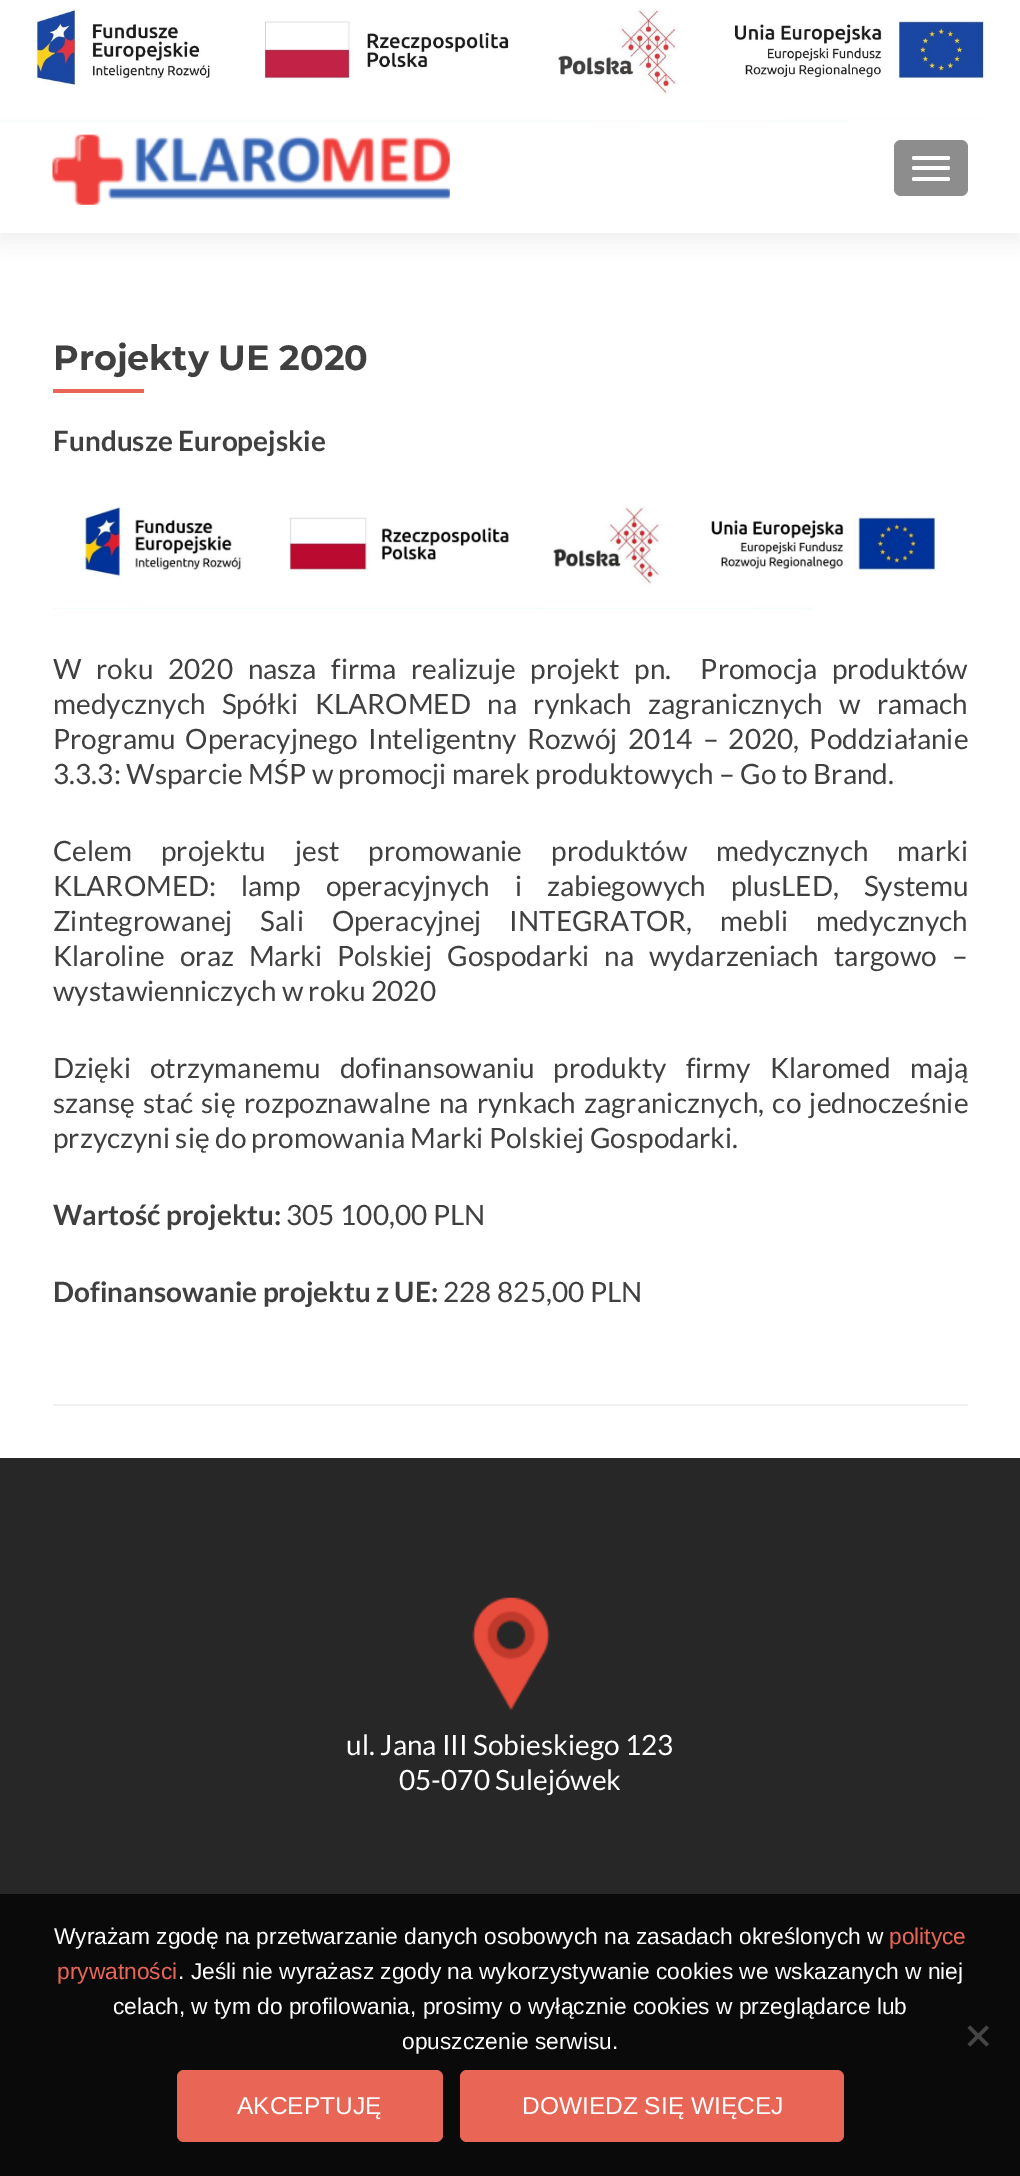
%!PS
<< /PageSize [1020 2176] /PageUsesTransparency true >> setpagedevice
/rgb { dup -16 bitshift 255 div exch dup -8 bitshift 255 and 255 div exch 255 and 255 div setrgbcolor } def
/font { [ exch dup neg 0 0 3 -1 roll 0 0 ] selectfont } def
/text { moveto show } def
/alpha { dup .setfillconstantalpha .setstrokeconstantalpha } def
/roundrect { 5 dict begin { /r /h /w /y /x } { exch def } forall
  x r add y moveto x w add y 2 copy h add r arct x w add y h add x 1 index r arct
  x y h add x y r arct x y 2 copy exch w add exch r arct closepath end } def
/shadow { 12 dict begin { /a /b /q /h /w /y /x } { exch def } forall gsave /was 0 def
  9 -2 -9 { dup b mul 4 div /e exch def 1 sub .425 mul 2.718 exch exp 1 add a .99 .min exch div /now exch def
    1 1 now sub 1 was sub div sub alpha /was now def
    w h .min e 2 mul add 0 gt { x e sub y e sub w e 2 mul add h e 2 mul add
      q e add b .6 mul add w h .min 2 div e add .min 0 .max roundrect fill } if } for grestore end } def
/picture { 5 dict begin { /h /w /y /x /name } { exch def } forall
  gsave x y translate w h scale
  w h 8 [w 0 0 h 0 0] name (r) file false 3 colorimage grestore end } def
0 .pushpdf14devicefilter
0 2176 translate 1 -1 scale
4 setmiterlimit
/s1 { /Montserrat-Bold 35 font 16#404040 rgb } def
/s2 { /Lato-Bold 28 font 16#404040 rgb } def
/s3 { /Lato-Regular 28 font 16#404040 rgb } def
/s4 { /Lato-Regular 28 font 16#FFFFFF rgb } def
/s5 { /LiberationSans-Regular 22.75 font 16#FFFFFF rgb } def
/s6 { /LiberationSans-Regular 22.75 font 16#E96656 rgb } def
/s7 { /LiberationSans-Regular 24.5 font 16#FFFFFF rgb } def
16#FFFFFF rgb
0 0 1020 2176 rectfill
16#474747 rgb
0 9 1020 233 0 9.5 0.08 shadow
16#FFFFFF rgb
0 0 1020 233 rectfill
(pic1.raw) 0 7 985 115 picture
(pic2.raw) 52 134 398 71 picture
16#8D8D8D rgb
894 140 74 56 7 roundrect fill
16#FFFFFF rgb
912 156 38 4 2 roundrect fill
912 166 38 4 2 roundrect fill
912 177 38 4 2 roundrect fill
16#F2F2F2 rgb
53 1404 915 2 rectfill
s1
(Projekty UE 2020) 53 370 text
16#E96656 rgb
53 389 91 4 rectfill
s2
(Fundusze Europejskie) 53 451 text
(pic3.raw) 52 506 886 103 picture
/Lato-Regular 28 font
53 679 moveto 9.25 0 32 (W roku 2020 nasza firma realizuje projekt pn.  Promocja produktów) widthshow
53 714 moveto 11 0 32 (medycznych Spółki KLAROMED na rynkach zagranicznych w ramach) widthshow
53 749 moveto 4.75 0 32 (Programu Operacyjnego Inteligentny Rozwój 2014 – 2020, Poddziałanie) widthshow
(3.3.3: Wsparcie MŚP w promocji marek produktowych – Go to Brand.) 53 784 text
53 861 moveto 23.75 0 32 (Celem projektu jest promowanie produktów medycznych marki) widthshow
53 896 moveto 19.5 0 32 (KLAROMED: lamp operacyjnych i zabiegowych plusLED, Systemu) widthshow
53 931 moveto 22.5 0 32 (Zintegrowanej Sali Operacyjnej INTEGRATOR, mebli medycznych) widthshow
53 966 moveto 9.5 0 32 (Klaroline oraz Marki Polskiej Gospodarki na wydarzeniach targowo –) widthshow
(wystawienniczych w roku 2020) 53 1001 text
53 1078 moveto 13.75 0 32 (Dzięki otrzymanemu dofinansowaniu produkty firmy Klaromed mają) widthshow
53 1113 moveto 3 0 32 (szansę stać się rozpoznawalne na rynkach zagranicznych, co jednocześnie) widthshow
(przyczyni się do promowania Marki Polskiej Gospodarki.) 53 1148 text
s2
(Wartość projektu:) 53 1225 text
s3
(305 100,00 PLN) 286 1225 text
s2
(Dofinansowanie projektu z UE:) 53 1302 text
s3
(228 825,00 PLN) 443 1302 text
16#272727 rgb
0 1458 1020 436 rectfill
(pic4.raw) 472 1597 78 113 picture
s4
(ul. Jana III Sobieskiego 123) 346 1755 text
(05-070 Sulejówek) 399 1790 text
16#0A0A0A rgb
0 1894 1020 282 rectfill
s5
(Wyrażam zgodę na przetwarzanie danych osobowych na zasadach określonych w) 54 1944 text
s6
(polityce) 889 1944 text
(prywatności) 57 1979 text
s5
(. Jeśli nie wyrażasz zgody na wykorzystywanie cookies we wskazanych w niej) 178 1979 text
(celach, w tym do profilowania, prosimy o wyłącznie cookies w przeglądarce lub) 113 2014 text
(opuszczenie serwisu.) 402 2049 text
16#454545 rgb
986.5 2025.5 moveto 989 2028 lineto 970 2046.5 lineto 967.5 2044 lineto closepath fill
967.5 2028 moveto 970 2025.5 lineto 989 2044 lineto 986.5 2046.5 lineto closepath fill
16#E96656 rgb
177 2070 266 72 7 roundrect fill
s7
(AKCEPTUJĘ) 237 2114 text
16#E96656 rgb
460 2070 384 72 7 roundrect fill
s7
(DOWIEDZ SIĘ WIĘCEJ) 522 2114 text
.poppdf14devicefilter showpage
